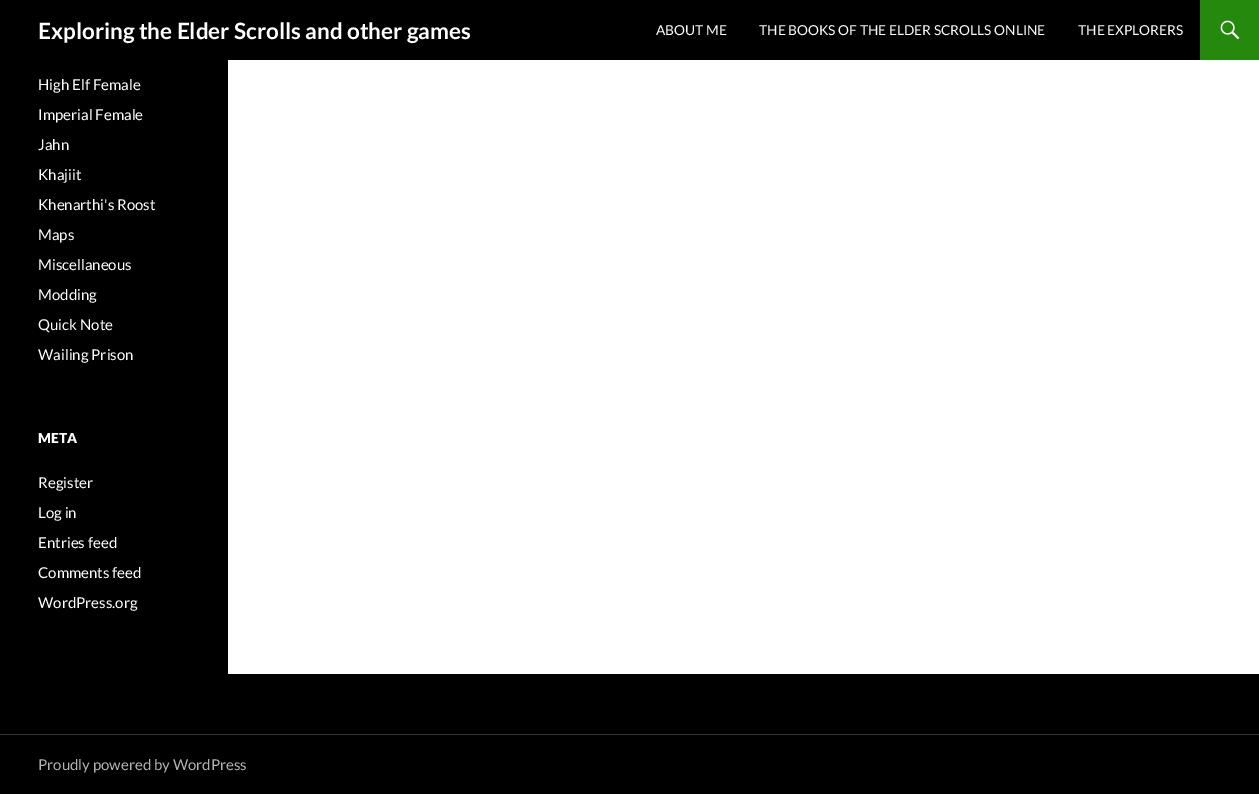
%!PS
<< /PageSize [1259 794] >> setpagedevice
/rgb { dup -16 bitshift 255 div exch dup -8 bitshift 255 and 255 div exch 255 and 255 div setrgbcolor } def
/font { [ exch dup neg 0 0 3 -1 roll 0 0 ] selectfont } def
/text { moveto show } def
/picture { 5 dict begin { /h /w /y /x /name } { exch def } forall
  gsave x y translate w h scale
  w h 8 [w 0 0 h 0 0] name (r) file false 3 colorimage grestore end } def
0 794 translate 1 -1 scale
4 setmiterlimit
/s1 { /Lato-Bold 22.5 font 16#FFFFFF rgb } def
/s2 { /Lato-Regular 13.75 font 16#FFFFFF rgb } def
/s3 { /Lato-Regular 15 font 16#FFFFFF rgb } def
/s4 { /Lato-Black 13.75 font 16#FFFFFF rgb } def
/s5 { /Lato-Regular 15 font 16#B3B3B3 rgb } def
16#FFFFFF rgb
0 0 1259 794 rectfill
16#000000 rgb
0 0 1200 60 rectfill
s1
(Exploring the Elder Scrolls and other games) 38 39 text
s2
(ABOUT ME) 656 35 text
(THE BOOKS OF THE ELDER SCROLLS ONLINE) 759 35 text
(THE EXPLORERS) 1078 35 text
16#24890D rgb
1200 0 59 60 rectfill
(pic1.raw) 1220 20 20 20 picture
16#000000 rgb
0 60 228 614 rectfill
s3
(High Elf Female) 38 90 text
(Imperial Female) 38 120 text
(Jahn) 38 150 text
(Khajiit) 38 180 text
(Khenarthi's Roost) 38 210 text
(Maps) 38 240 text
(Miscellaneous) 38 270 text
(Modding) 38 300 text
(Quick Note) 38 330 text
(Wailing Prison) 38 360 text
s4
(META) 38 443 text
s3
(Register) 38 488 text
(Log in) 38 518 text
(Entries feed) 38 548 text
(Comments feed) 38 578 text
(WordPress.org) 38 608 text
16#000000 rgb
0 674 1259 120 rectfill
16#333333 rgb
0 734 1259 1 rectfill
s5
(Proudly powered by WordPress) 38 770 text
showpage
